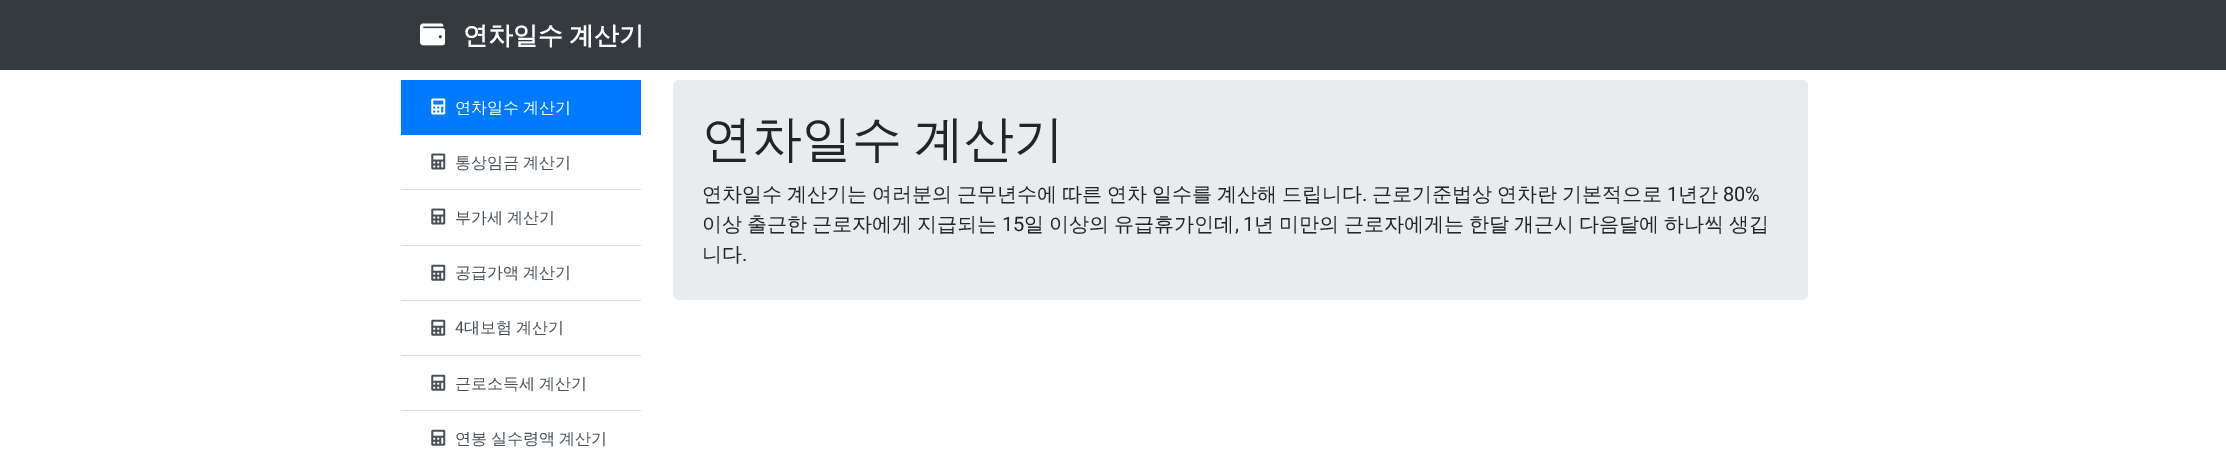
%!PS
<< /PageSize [2226 465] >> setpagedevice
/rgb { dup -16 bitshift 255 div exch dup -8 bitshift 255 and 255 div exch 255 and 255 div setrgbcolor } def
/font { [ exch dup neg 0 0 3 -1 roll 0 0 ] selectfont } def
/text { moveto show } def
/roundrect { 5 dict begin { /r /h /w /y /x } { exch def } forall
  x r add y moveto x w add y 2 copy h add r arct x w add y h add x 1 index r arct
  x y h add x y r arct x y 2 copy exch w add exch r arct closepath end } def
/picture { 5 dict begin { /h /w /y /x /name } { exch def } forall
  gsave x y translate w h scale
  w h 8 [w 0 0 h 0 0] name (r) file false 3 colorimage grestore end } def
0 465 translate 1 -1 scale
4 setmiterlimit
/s1 { /Roboto-Regular 16 font 16#495057 rgb } def
/s2 { /Roboto-Regular 20 font 16#212529 rgb } def
/s3 { /WenQuanYiZenHei-Medium 20 font 16#212529 rgb } def
16#FFFFFF rgb
0 0 2226 465 rectfill
16#343A40 rgb
0 0 2226 70 rectfill
(pic1.raw) 420 23 25 23 picture
/WenQuanYiZenHei-Bold 25 font
16#FFFFFF rgb
463 44 moveto -1 0 32 (연차일수 계산기) widthshow
16#007BFF rgb
401 80 240 55 rectfill
(pic2.raw) 431 98 15 17 picture
/WenQuanYiZenHei-Medium 16 font
16#FFFFFF rgb
455 113 moveto -1 0 32 (연차일수 계산기) widthshow
(pic3.raw) 431 153 15 17 picture
16#495057 rgb
455 168 moveto -1 0 32 (통상임금 계산기) widthshow
16#DFDFDF rgb
401 189 240 1 rectfill
(pic3.raw) 431 208 15 17 picture
16#495057 rgb
455 223 moveto -1 0 32 (부가세 계산기) widthshow
16#DFDFDF rgb
401 245 240 1 rectfill
(pic4.raw) 431 264 15 17 picture
16#495057 rgb
455 278 moveto -1 0 32 (공급가액 계산기) widthshow
16#DFDFDF rgb
401 300 240 1 rectfill
(pic4.raw) 431 319 15 17 picture
s1
(4) 455 333 text
/WenQuanYiZenHei-Medium 16 font
464 333 moveto -1 0 32 (대보험 계산기) widthshow
16#DFDFDF rgb
401 355 240 1 rectfill
(pic4.raw) 431 374 15 17 picture
16#495057 rgb
455 389 moveto -1 0 32 (근로소득세 계산기) widthshow
16#DFDFDF rgb
401 410 240 1 rectfill
(pic4.raw) 431 429 15 17 picture
16#495057 rgb
455 444 moveto -1 0 32 (연봉 실수령액 계산기) widthshow
16#E9ECEF rgb
673 80 1135 220 6 roundrect fill
/WenQuanYiZenHei-Medium 50 font
16#212529 rgb
702 156 moveto -3 0 32 (연차일수 계산기) widthshow
/WenQuanYiZenHei-Medium 20 font
702 201 moveto -1 0 32 (연차일수 계산기는 여러분의 근무년수에 따른 연차 일수를 계산해 드립니다) widthshow
s2
(.) 1362 201 text
/WenQuanYiZenHei-Medium 20 font
1372 201 moveto -1 0 32 (근로기준법상 연차란 기본적으로) widthshow
s2
(1) 1667 201 text
s3
(년간) 1678 201 text
s2
(80%) 1723 201 text
/WenQuanYiZenHei-Medium 20 font
702 231 moveto -1 0 32 (이상 출근한 근로자에게 지급되는) widthshow
s2
(15) 1002 231 text
/WenQuanYiZenHei-Medium 20 font
1024 231 moveto -1 0 32 (일 이상의 유급휴가인데) widthshow
s2
(,) 1235 231 text
(1) 1243 231 text
/WenQuanYiZenHei-Medium 20 font
1254 231 moveto -1 0 32 (년 미만의 근로자에게는 한달 개근시 다음달에 하나씩 생깁) widthshow
(니다) 702 261 text
s2
(.) 742 261 text
showpage
